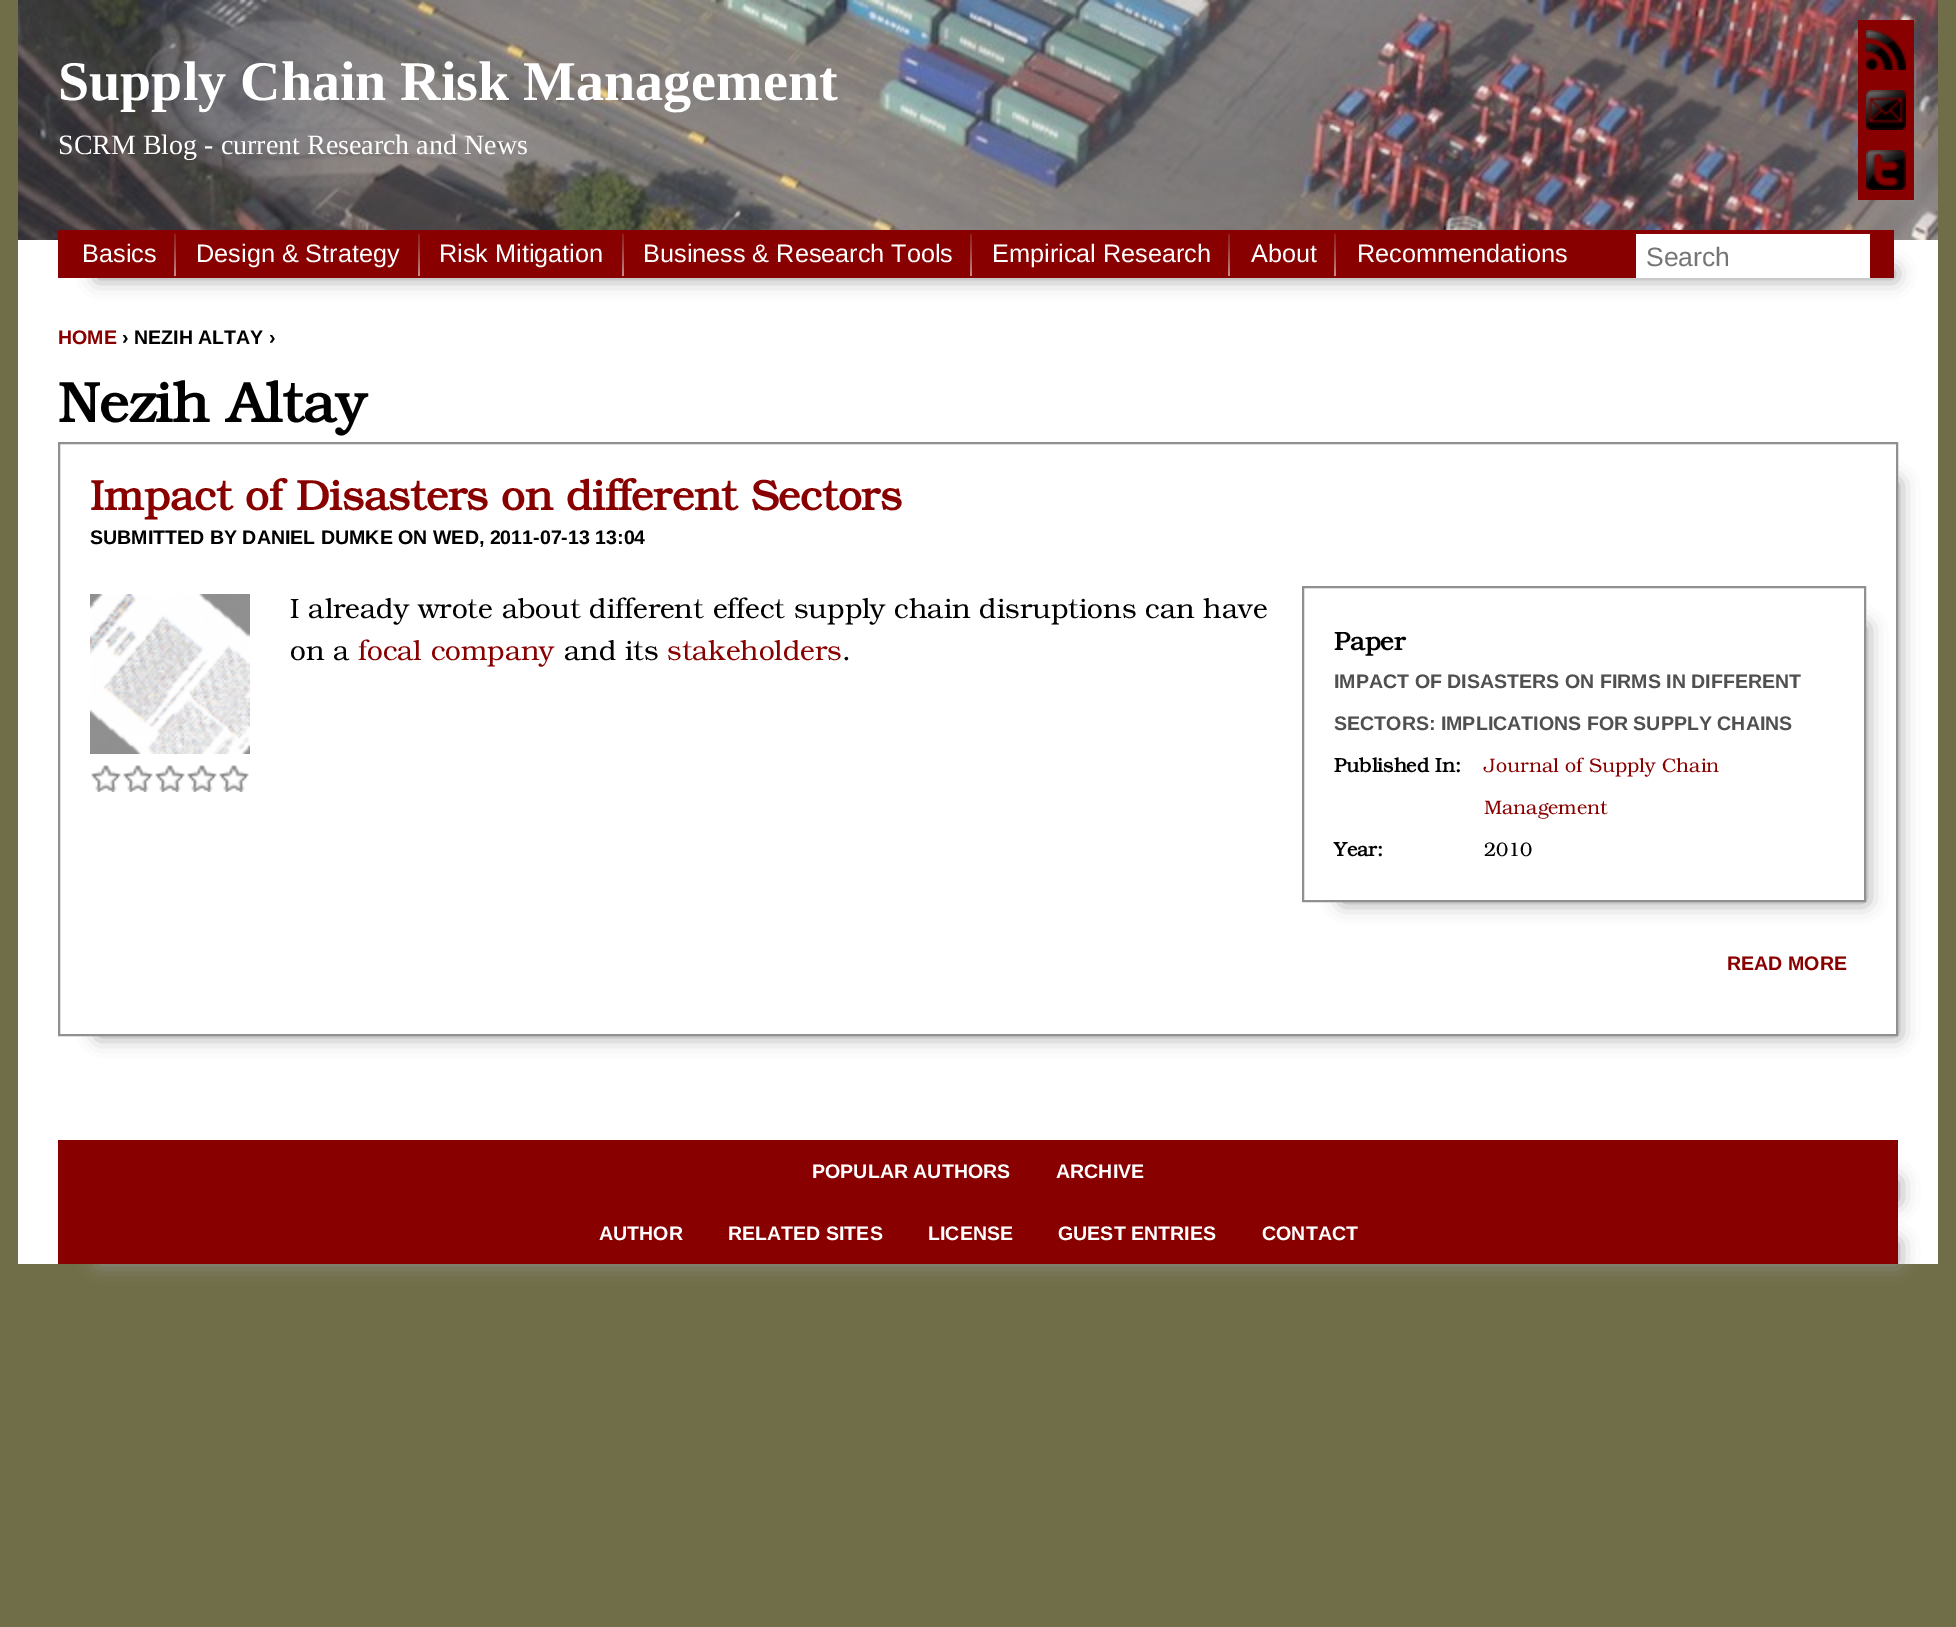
%!PS
<< /PageSize [1956 1627] /PageUsesTransparency true >> setpagedevice
/rgb { dup -16 bitshift 255 div exch dup -8 bitshift 255 and 255 div exch 255 and 255 div setrgbcolor } def
/font { [ exch dup neg 0 0 3 -1 roll 0 0 ] selectfont } def
/text { moveto show } def
/alpha { dup .setfillconstantalpha .setstrokeconstantalpha } def
/roundrect { 5 dict begin { /r /h /w /y /x } { exch def } forall
  x r add y moveto x w add y 2 copy h add r arct x w add y h add x 1 index r arct
  x y h add x y r arct x y 2 copy exch w add exch r arct closepath end } def
/shadow { 12 dict begin { /a /b /q /h /w /y /x } { exch def } forall gsave /was 0 def
  9 -2 -9 { dup b mul 4 div /e exch def 1 sub .425 mul 2.718 exch exp 1 add a .99 .min exch div /now exch def
    1 1 now sub 1 was sub div sub alpha /was now def
    w h .min e 2 mul add 0 gt { x e sub y e sub w e 2 mul add h e 2 mul add
      q e add b .6 mul add w h .min 2 div e add .min 0 .max roundrect fill } if } for grestore end } def
/picture { 5 dict begin { /h /w /y /x /name } { exch def } forall
  gsave x y translate w h scale
  w h 8 [w 0 0 h 0 0] name (r) file false 3 colorimage grestore end } def
0 .pushpdf14devicefilter
0 1627 translate 1 -1 scale
4 setmiterlimit
/s1 { /LiberationSerif-Bold 56 font 16#FFFFFF rgb } def
/s2 { /LiberationSerif-Regular 28 font 16#FFFFFF rgb } def
/s3 { /LiberationSans-Regular 25.25 font 16#FFFFFF rgb } def
/s4 { /LiberationSans-Regular 26.5 font 16#757575 rgb } def
/s5 { /LiberationSans-Bold 19.6 font 16#890000 rgb } def
/s6 { /LiberationSans-Bold 19.6 font 16#000000 rgb } def
/s7 { /TeXGyreBonum-Bold 56 font 16#000000 rgb } def
/s8 { /TeXGyreBonum-Bold 42 font 16#890000 rgb } def
/s9 { /TeXGyreBonum-Regular 28 font 16#000000 rgb } def
/s10 { /TeXGyreBonum-Regular 28 font 16#890000 rgb } def
/s11 { /TeXGyreBonum-Bold 25.5 font 16#000000 rgb } def
/s12 { /LiberationSans-Bold 19.6 font 16#505050 rgb } def
/s13 { /TeXGyreBonum-Bold 19.6 font 16#000000 rgb } def
/s14 { /TeXGyreBonum-Regular 19.6 font 16#890000 rgb } def
/s15 { /TeXGyreBonum-Regular 19.6 font 16#000000 rgb } def
/s16 { /LiberationSans-Bold 19.6 font 16#FFFFFF rgb } def
16#706E48 rgb
0 0 1956 1627 rectfill
16#FFFFFF rgb
18 240 1920 1024 rectfill
(pic1.raw) 18 0 1920 240 picture
s1
(Supply Chain Risk Management) 58 100 text
s2
(SCRM Blog - current Research and News) 58 154 text
16#909090 rgb
1898 60 16 140 0 10 1 shadow
16#890000 rgb
1858 20 56 180 rectfill
(pic2.raw) 1866 30 40 40 picture
(pic3.raw) 1866 90 40 40 picture
(pic4.raw) 1866 150 40 40 picture
16#909090 rgb
98 270 1796 8 0 10 1 shadow
16#890000 rgb
58 230 1836 48 rectfill
(pic5.raw) 174 234 2 42 picture
s3
(Basics) 82 262 text
(pic5.raw) 418 234 2 42 picture
(Design & Strategy) 196 262 text
(pic5.raw) 622 234 2 42 picture
(Risk Mitigation) 439 262 text
(pic5.raw) 970 234 2 42 picture
(Business & Research Tools) 643 262 text
(pic5.raw) 1228 234 2 42 picture
(Empirical Research) 992 262 text
(pic5.raw) 1334 234 2 42 picture
(About) 1251 262 text
(Recommendations) 1357 262 text
1636 234 234 44 rectfill
s4
(Search) 1646 266 text
s5
(HOME) 58 344 text
s6
(› NEZIH ALTAY ›) 122 344 text
s7
(Nezih Altay) 58 422 text
gsave
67 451 moveto 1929 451 lineto 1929 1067 lineto 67 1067 lineto closepath 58 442 moveto 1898 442 lineto 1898 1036 lineto 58 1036 lineto closepath eoclip newpath
16#909090 rgb
98 482 1800 554 0 10 1 shadow
grestore
16#909090 rgb
2 setlinewidth
59 443 1838 592 rectstroke
s8
(Impact of Disasters on different Sectors) 90 510 text
s6
(SUBMITTED BY DANIEL DUMKE ON WED, 2011-07-13 13:04) 90 544 text
(pic6.raw) 90 594 160 160 picture
(pic7.raw) 91 765 30 27 picture
(pic8.raw) 91 765 30 27 picture
(pic7.raw) 123 765 30 27 picture
(pic8.raw) 123 765 30 27 picture
(pic7.raw) 155 765 30 27 picture
(pic8.raw) 155 765 30 27 picture
(pic7.raw) 187 765 30 27 picture
(pic8.raw) 187 765 30 27 picture
(pic7.raw) 219 765 30 27 picture
(pic8.raw) 219 765 30 27 picture
s9
(I already wrote about different effect supply chain disruptions can have) 290 618 text
(on a) 290 660 text
s10
(focal company) 358 660 text
s9
(and its) 564 660 text
s10
(stakeholders) 667 660 text
s9
(.) 842 660 text
gsave
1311 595 moveto 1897 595 lineto 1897 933 lineto 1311 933 lineto closepath 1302 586 moveto 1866 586 lineto 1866 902 lineto 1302 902 lineto closepath eoclip newpath
16#909090 rgb
1342 626 524 276 0 10 1 shadow
grestore
16#909090 rgb
1303 587 562 314 rectstroke
s11
(Paper) 1334 650 text
s12
(IMPACT OF DISASTERS ON FIRMS IN DIFFERENT) 1334 688 text
(SECTORS: IMPLICATIONS FOR SUPPLY CHAINS) 1334 730 text
s13
(Published In:) 1334 772 text
s14
(Journal of Supply Chain) 1484 772 text
(Management) 1484 814 text
s13
(Year:) 1334 856 text
s15
(2010) 1484 856 text
s5
(READ MORE) 1727 970 text
16#909090 rgb
98 1180 1800 22 0 10 1 shadow
16#890000 rgb
58 1140 1840 62 rectfill
s16
(POPULAR AUTHORS) 812 1178 text
(ARCHIVE) 1056 1178 text
16#909090 rgb
98 1242 1800 22 0 10 1 shadow
16#890000 rgb
58 1202 1840 62 rectfill
s16
(AUTHOR) 599 1240 text
(RELATED SITES) 728 1240 text
(LICENSE) 928 1240 text
(GUEST ENTRIES) 1058 1240 text
(CONTACT) 1262 1240 text
.poppdf14devicefilter showpage
